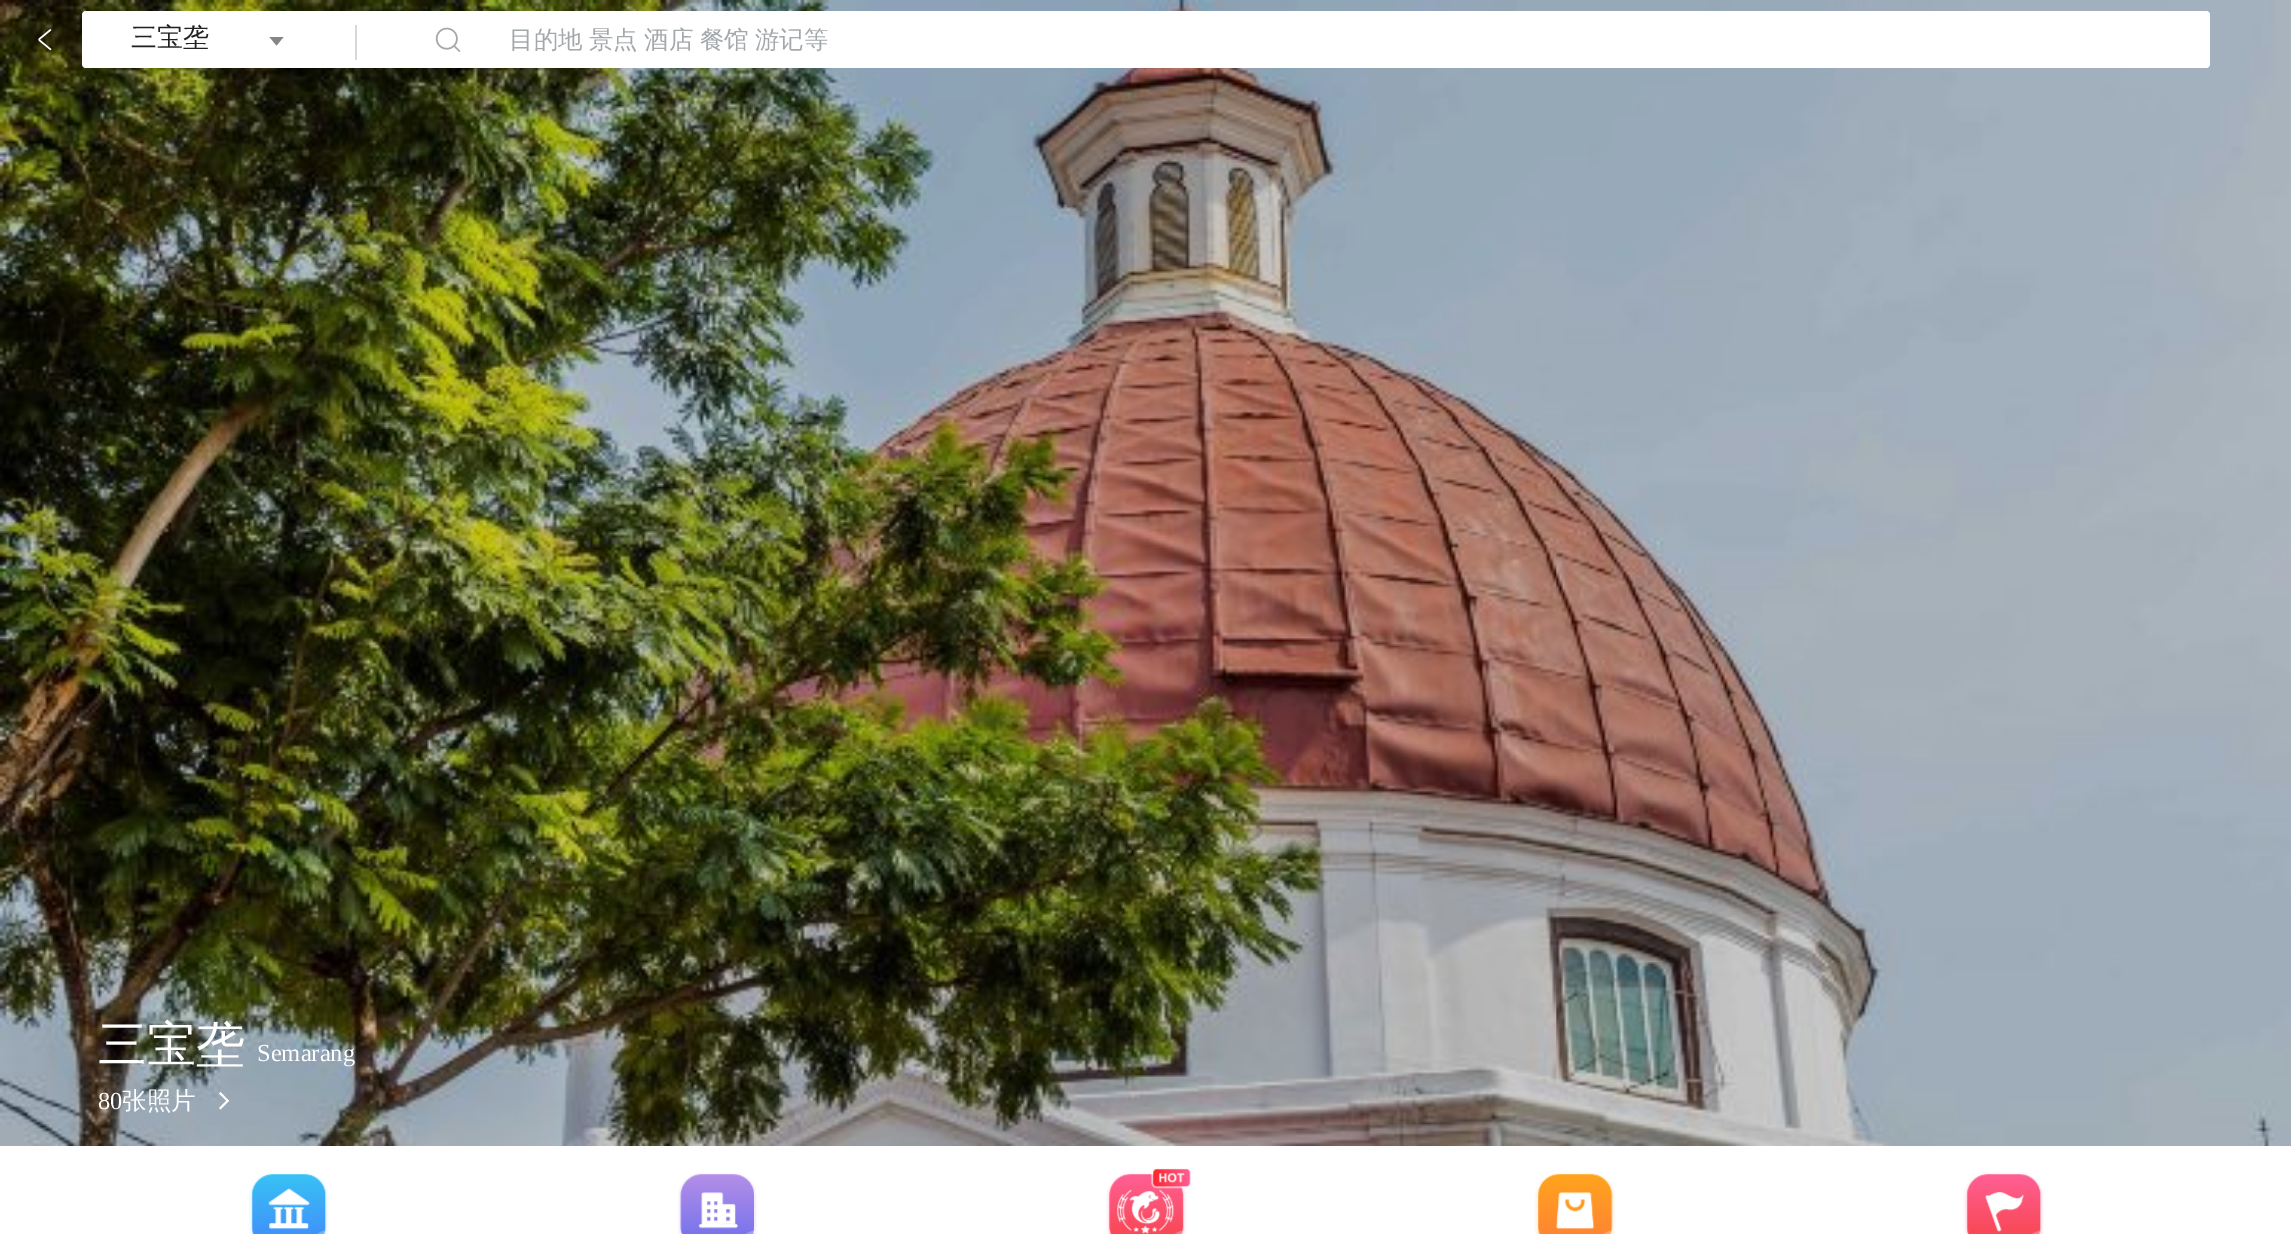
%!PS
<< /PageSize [2291 1234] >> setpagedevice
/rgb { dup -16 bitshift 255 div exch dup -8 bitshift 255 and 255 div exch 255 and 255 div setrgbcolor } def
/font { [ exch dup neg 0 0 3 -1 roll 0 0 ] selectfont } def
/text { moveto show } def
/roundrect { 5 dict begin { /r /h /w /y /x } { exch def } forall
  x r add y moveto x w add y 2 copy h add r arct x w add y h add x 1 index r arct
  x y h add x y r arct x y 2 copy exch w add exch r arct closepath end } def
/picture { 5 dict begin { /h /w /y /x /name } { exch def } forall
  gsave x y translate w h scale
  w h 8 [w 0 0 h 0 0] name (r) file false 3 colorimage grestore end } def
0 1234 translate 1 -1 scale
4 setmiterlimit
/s1 { /WenQuanYiZenHei-Medium 26 font 16#222222 rgb } def
/s2 { /WenQuanYiZenHei-Medium 49 font 16#FFFFFF rgb } def
/s3 { /LiberationSerif-Regular 24.5 font 16#FFFFFF rgb } def
/s4 { /WenQuanYiZenHei-Medium 24.5 font 16#FFFFFF rgb } def
16#FFFFFF rgb
0 0 2291 1234 rectfill
(pic1.raw) 0 0 2291 1146 picture
(pic2.raw) 38 29 14 22 picture
82 11 2128 57 4 roundrect fill
s1
(三宝垄) 131 46 text
16#868686 rgb
269.5 37 moveto 283.5 37 lineto 276.5 45.5 lineto closepath fill
16#D8D8D8 rgb
355 25 2 35 rectfill
(pic3.raw) 435 27 26 25 picture
/WenQuanYiZenHei-Medium 24.5 font
16#A3A8AB rgb
509 48 moveto -1 0 32 (目的地 景点 酒店 餐馆 游记等) widthshow
s2
(三宝垄) 98 1061 text
s3
(Semarang) 257 1061 text
(80) 98 1109 text
s4
(张照片) 122 1109 text
227.5 1102 moveto 219 1093.5 lineto 220.5 1092 lineto 229 1101 lineto closepath fill
220.5 1109.5 moveto 219 1108 lineto 227.5 1099.5 lineto 229 1101 lineto closepath fill
(pic4.raw) 248 1172 81 62 picture
(pic5.raw) 678 1173 79 61 picture
(pic6.raw) 1106 1168 85 66 picture
(pic7.raw) 1534 1172 82 62 picture
(pic8.raw) 1963 1172 81 62 picture
showpage
